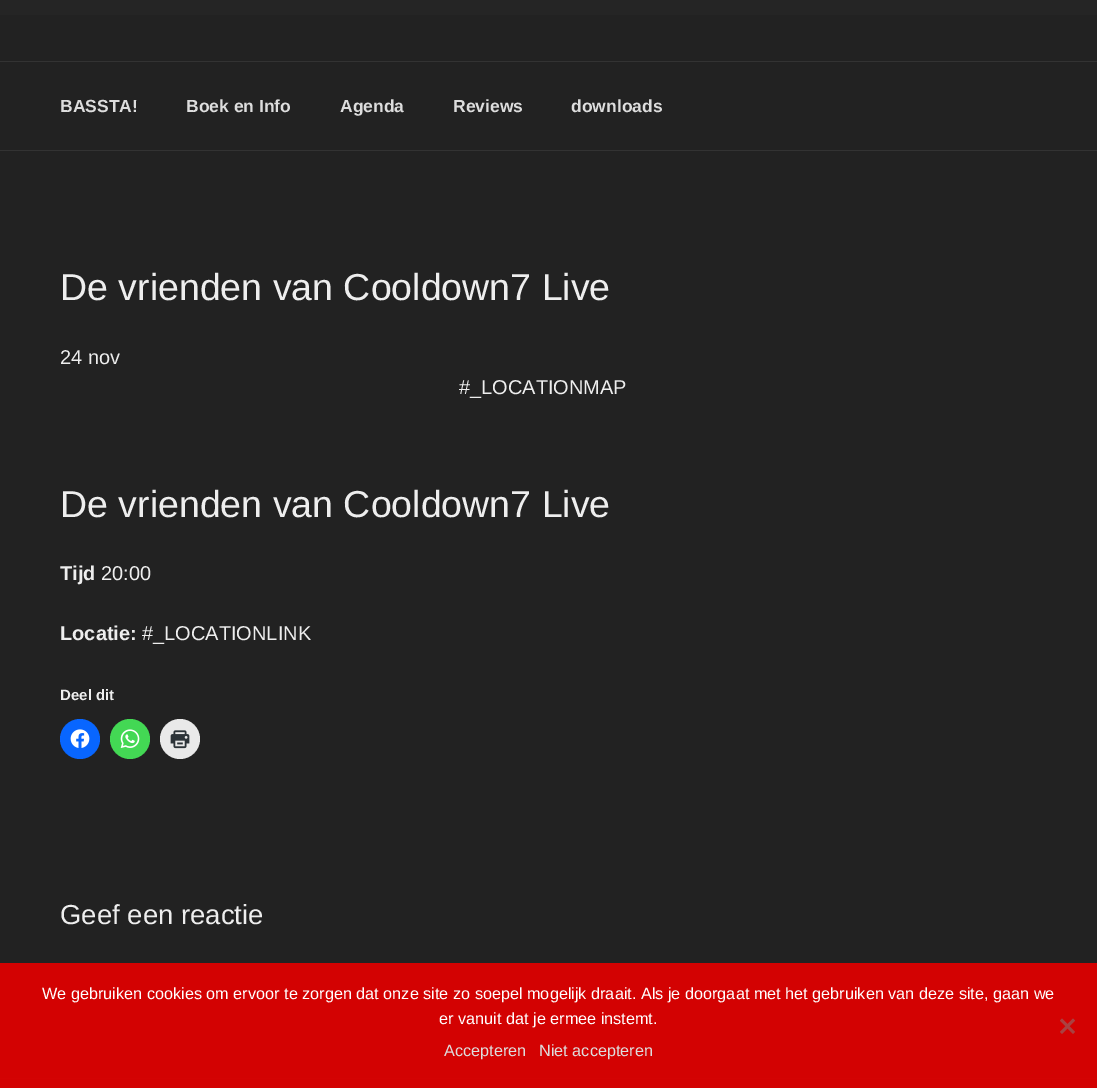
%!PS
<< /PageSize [1097 1088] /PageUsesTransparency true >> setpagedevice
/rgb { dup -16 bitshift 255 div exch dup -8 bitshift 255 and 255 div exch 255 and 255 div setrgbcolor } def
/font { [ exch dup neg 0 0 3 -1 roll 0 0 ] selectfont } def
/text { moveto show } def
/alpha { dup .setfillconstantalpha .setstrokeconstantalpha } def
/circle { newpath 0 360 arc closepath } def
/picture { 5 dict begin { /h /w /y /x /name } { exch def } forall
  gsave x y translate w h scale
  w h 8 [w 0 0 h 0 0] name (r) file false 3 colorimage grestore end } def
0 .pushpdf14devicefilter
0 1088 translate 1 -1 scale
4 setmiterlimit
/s1 { /LiberationSans-Bold 17.5 font 16#DDDDDD rgb } def
/s2 { /LiberationSans-Regular 37.5 font 16#EEEEEE rgb } def
/s3 { /LiberationSans-Regular 20 font 16#EEEEEE rgb } def
/s4 { /LiberationSans-Bold 20 font 16#EEEEEE rgb } def
/s5 { /LiberationSans-Bold 15 font 16#EEEEEE rgb } def
/s6 { /LiberationSans-Regular 27.5 font 16#EEEEEE rgb } def
/s7 { /LiberationSans-Regular 16.25 font 16#FFFFFF rgb } def
/s8 { /LiberationSans-Regular 16.25 font 16#DDDDDD rgb } def
16#222222 rgb
0 0 1097 1088 rectfill
gsave 0 0 moveto 1097 0 lineto 1097 15 lineto 0 15 lineto closepath clip newpath
<< /ShadingType 2 /ColorSpace /DeviceRGB /Coords [549 0 549 151] /Extend [true true] /Function << /FunctionType 3 /Domain [0 1] /Functions [<< /FunctionType 2 /Domain [0 1] /C0 [0.149 0.149 0.149] /C1 [0.106 0.106 0.106] /N 1 >> << /FunctionType 2 /Domain [0 1] /C0 [0.106 0.106 0.106] /C1 [0.106 0.106 0.106] /N 1 >>] /Bounds [0.75] /Encode [0 1 0 1] >> >> shfill grestore
16#333333 rgb
0 61 1097 1 rectfill
0 150 1097 1 rectfill
s1
(BASSTA!) 60 112 text
(Boek en Info) 186 112 text
(Agenda) 340 112 text
(Reviews) 453 112 text
(downloads) 571 112 text
s2
(De vrienden van Cooldown7 Live) 60 300 text
s3
(24 nov) 60 364 text
(#_LOCATIONMAP) 459 394 text
s2
(De vrienden van Cooldown7 Live) 60 517 text
s4
(Tijd) 60 580 text
s3
(20:00) 101 580 text
s4
(Locatie:) 60 640 text
s3
(#_LOCATIONLINK) 142 640 text
s5
(Deel dit) 60 700 text
16#0866FF rgb
80 739 20 circle fill
(pic1.raw) 70 729 20 19 picture
16#43D854 rgb
130 739 20 circle fill
(pic2.raw) 120 729 20 19 picture
16#E9E9E9 rgb
180 739 20 circle fill
(pic3.raw) 170 730 20 19 picture
s6
(Geef een reactie) 60 924 text
16#333333 rgb
0 1078 1097 1 rectfill
0.95 alpha
16#DD0000 rgb
0 963 1097 125 rectfill
1 alpha
s7
(We gebruiken cookies om ervoor te zorgen dat onze site zo soepel mogelijk draait. Als je doorgaat met het gebruiken van deze site, gaan we) 42 999 text
(er vanuit dat je ermee instemt.) 439 1024 text
16#AA4141 rgb
1073 1018.5 moveto 1075 1020.5 lineto 1062 1034 lineto 1060 1032 lineto closepath fill
1060 1020.5 moveto 1062 1018.5 lineto 1075 1032 lineto 1073 1034 lineto closepath fill
s8
(Accepteren) 444 1056 text
(Niet accepteren) 539 1056 text
.poppdf14devicefilter showpage
